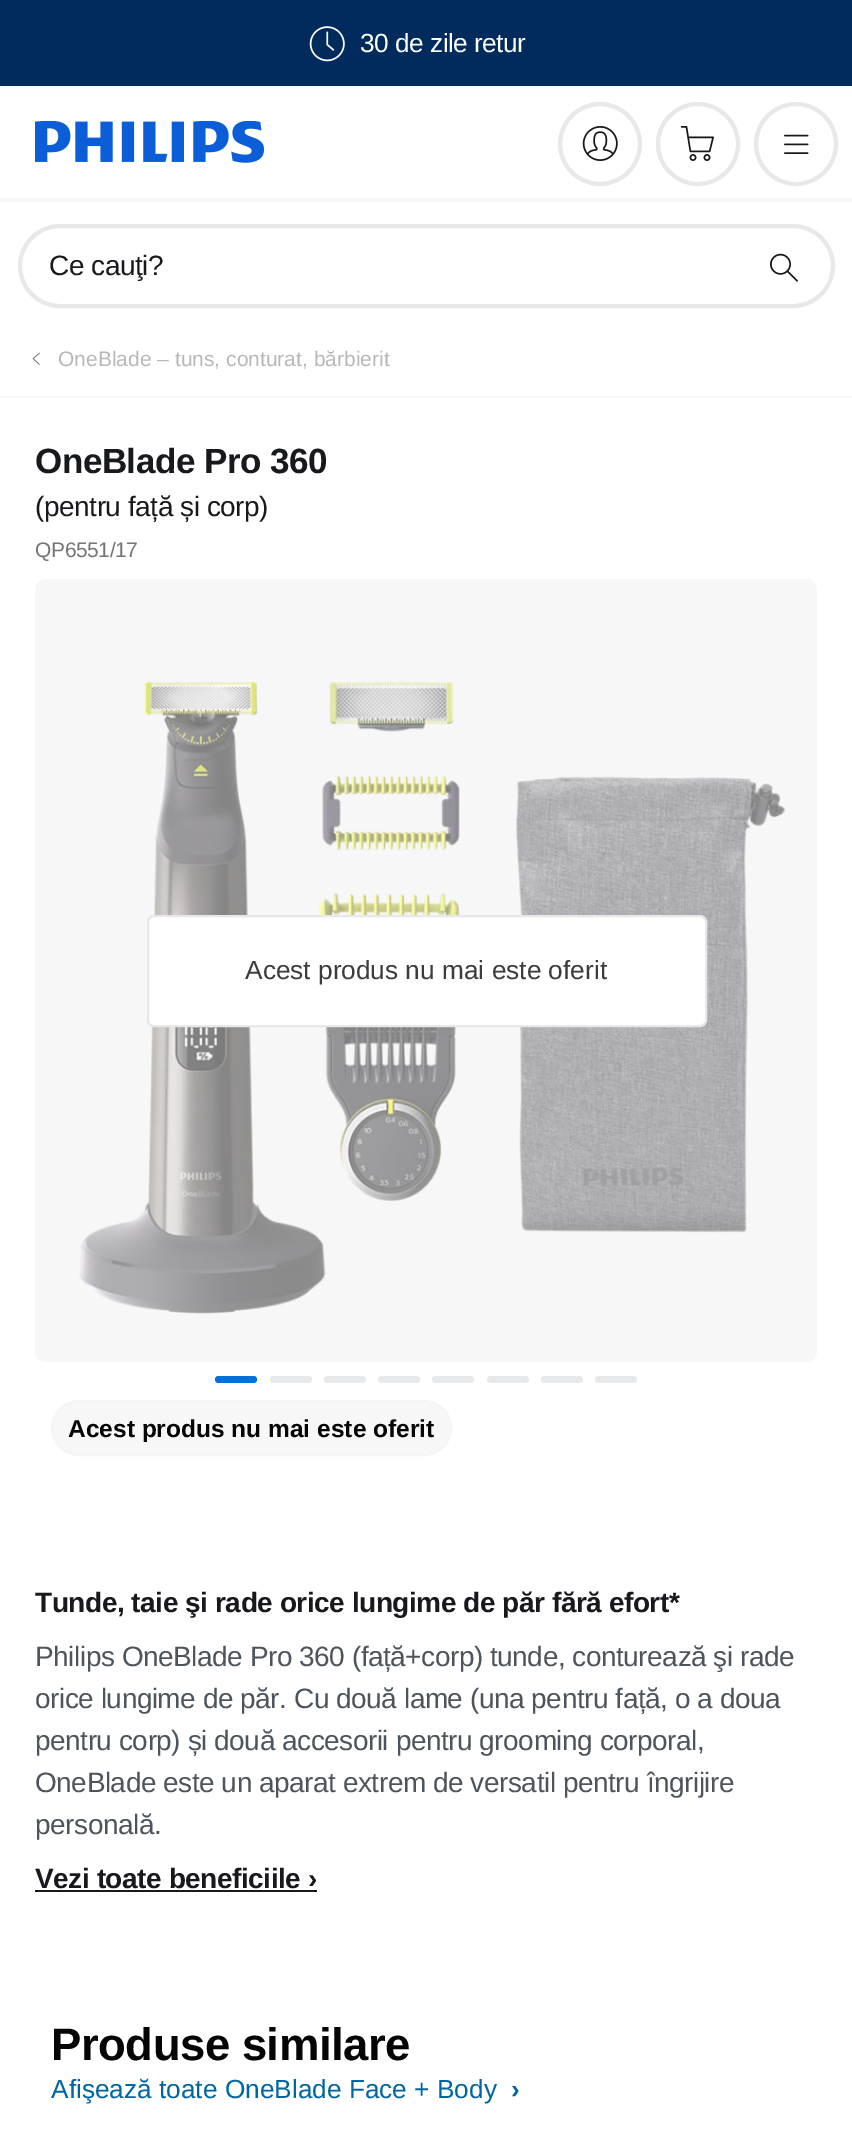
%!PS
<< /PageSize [852 2130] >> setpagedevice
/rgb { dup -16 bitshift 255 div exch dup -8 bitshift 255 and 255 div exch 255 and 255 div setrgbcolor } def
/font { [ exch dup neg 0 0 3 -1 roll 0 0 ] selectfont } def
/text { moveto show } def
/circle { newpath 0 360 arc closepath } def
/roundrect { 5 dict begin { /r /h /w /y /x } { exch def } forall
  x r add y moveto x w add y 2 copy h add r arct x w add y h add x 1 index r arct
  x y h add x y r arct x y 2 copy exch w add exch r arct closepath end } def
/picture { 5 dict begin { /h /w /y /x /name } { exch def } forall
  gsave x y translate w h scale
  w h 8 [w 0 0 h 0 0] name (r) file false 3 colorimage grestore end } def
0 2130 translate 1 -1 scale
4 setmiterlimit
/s1 { /LiberationSans-Regular 21 font 16#B8B8B8 rgb } def
/s2 { /LiberationSans-Regular 26.25 font 16#3C3C3C rgb } def
/s3 { /LiberationSans-Bold 24.5 font 16#050505 rgb } def
/s4 { /LiberationSans-Regular 26.25 font 16#0066A1 rgb } def
/s5 { /LiberationSans-Bold 26.25 font 16#0066A1 rgb } def
16#FFFFFF rgb
0 0 852 2130 rectfill
16#002B5C rgb
0 0 852 86 rectfill
(pic1.raw) 309 26 36 36 picture
/LiberationSans-Regular 26.25 font
16#FFFFFF rgb
360 52 moveto -0.5 0 (30 de zile retur) ashow
(pic2.raw) 35 121 229 42 picture
16#F7F7F7 rgb
0 198 852 4 rectfill
16#E8E8E8 rgb
4 setlinewidth
600 144 40 circle stroke
(pic3.raw) 582 126 36 35 picture
698 144 40 circle stroke
(pic4.raw) 680 126 34 35 picture
796 144 40 circle stroke
(pic5.raw) 784 134 25 20 picture
20 226 813 80 40 roundrect stroke
/LiberationSans-Regular 28 font
16#17191C rgb
49 275 moveto -0.47 0 (Ce cauţi?) ashow
(pic6.raw) 770 253 28 29 picture
16#F7F7F7 rgb
0 396 852 2 rectfill
(pic7.raw) 32 352 8 13 picture
s1
(OneBlade – tuns, conturat, bărbierit) 58 366 text
/LiberationSans-Bold 35 font
16#17191C rgb
35 473 moveto -0.47 0 (OneBlade Pro 360) ashow
/LiberationSans-Regular 28 font
35 516 moveto -0.45 0 (\(pentru față și corp\)) ashow
/LiberationSans-Regular 21 font
16#757575 rgb
35 557 moveto -0.4 0 (QP6551/17) ashow
16#F7F7F7 rgb
35 579 782 783 11 roundrect fill
(pic8.raw) 79 681 707 633 picture
16#FFFFFF rgb
148 916 558 110 6 roundrect gsave fill grestore
16#E8E8E8 rgb
2 setlinewidth
stroke
s2
(Acest produs nu mai este oferit) 245 979 text
16#0072DB rgb
215 1376 42 7 3.5 roundrect fill
16#E6E8EA rgb
270 1376 42 7 3.5 roundrect fill
324 1376 42 7 3.5 roundrect fill
378 1376 42 7 3.5 roundrect fill
432 1376 42 7 3.5 roundrect fill
487 1376 42 7 3.5 roundrect fill
541 1376 42 7 3.5 roundrect fill
595 1376 42 7 3.5 roundrect fill
16#F7F7F7 rgb
52 1401 399 54 27 roundrect gsave fill grestore
16#F5F5F5 rgb
stroke
s3
(Acest produs nu mai este oferit) 68 1437 text
/LiberationSans-Bold 28 font
16#17191C rgb
35 1612 moveto -0.45 0 (Tunde, taie şi rade orice lungime de păr fără efort*) ashow
/LiberationSans-Regular 28 font
16#4D545B rgb
35 1666 moveto -0.47 0 (Philips OneBlade Pro 360 \(față+corp\) tunde, conturează şi rade) ashow
35 1708 moveto -0.47 0 (orice lungime de păr. Cu două lame \(una pentru față, o a doua) ashow
35 1750 moveto -0.47 0 (pentru corp\) și două accesorii pentru grooming corporal,) ashow
35 1792 moveto -0.47 0 (OneBlade este un aparat extrem de versatil pentru îngrijire) ashow
35 1834 moveto -0.47 0 (personală.) ashow
/LiberationSans-Bold 28 font
16#17191C rgb
35 1888 moveto -0.45 0 (Vezi toate beneficiile ›) ashow
35 1890 282 2 rectfill
/LiberationSans-Bold 45.5 font
16#050505 rgb
51 2060 moveto -0.5 0 (Produse similare) ashow
s4
(Afişează toate OneBlade Face + Body) 51 2098 text
s5
(›) 511 2098 text
showpage
